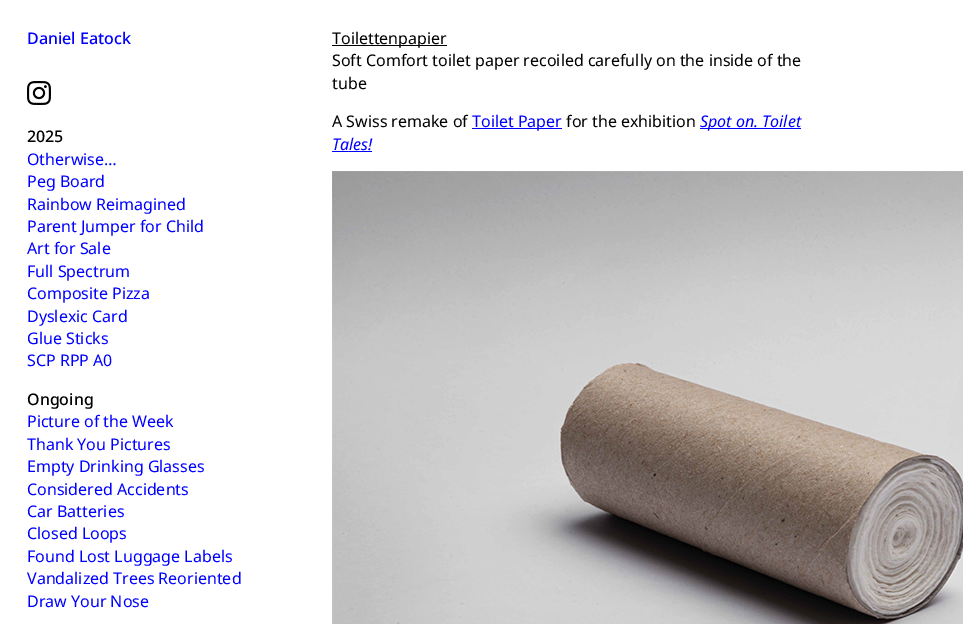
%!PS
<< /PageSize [963 624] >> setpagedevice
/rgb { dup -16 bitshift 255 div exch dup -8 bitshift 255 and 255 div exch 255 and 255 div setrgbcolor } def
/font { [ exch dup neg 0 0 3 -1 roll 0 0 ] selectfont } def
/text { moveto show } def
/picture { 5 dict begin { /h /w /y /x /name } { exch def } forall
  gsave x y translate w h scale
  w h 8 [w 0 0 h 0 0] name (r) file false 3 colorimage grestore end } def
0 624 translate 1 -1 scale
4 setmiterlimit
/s1 { /NotoSans-Medium 16 font 16#0000FF rgb } def
/s2 { /NotoSans-Medium 16 font 16#000000 rgb } def
/s3 { /NotoSans-Regular 16 font 16#0000FF rgb } def
/s4 { /NotoSans-Regular 16 font 16#000000 rgb } def
/s5 { /NotoSans-Italic 16 font 16#0000FF rgb } def
16#FFFFFF rgb
0 0 963 624 rectfill
s1
(Daniel Eatock) 27 44 text
(pic1.raw) 27 81 24 24 picture
s2
(2025) 27 142 text
s3
(Otherwise…) 27 165 text
(Peg Board) 27 187 text
(Rainbow Reimagined) 27 210 text
(Parent Jumper for Child) 27 232 text
(Art for Sale) 27 254 text
(Full Spectrum) 27 277 text
(Composite Pizza) 27 299 text
(Dyslexic Card) 27 322 text
(Glue Sticks) 27 344 text
(SCP RPP A0) 27 366 text
s2
(Ongoing) 27 405 text
s3
(Picture of the Week) 27 427 text
(Thank You Pictures) 27 450 text
(Empty Drinking Glasses) 27 472 text
(Considered Accidents) 27 495 text
(Car Batteries) 27 517 text
(Closed Loops) 27 539 text
(Found Lost Luggage Labels) 27 562 text
(Vandalized Trees Reoriented) 27 584 text
(Draw Your Nose) 27 607 text
16#000000 rgb
332 45 115 1 rectfill
(Toilettenpapier) 332 44 text
(Soft Comfort toilet paper recoiled carefully on the inside of the) 332 66 text
(tube) 332 89 text
(A Swiss remake of) 332 127 text
16#0000FF rgb
472 128 90 1 rectfill
(Toilet Paper) 472 127 text
s4
(for the exhibition) 566 127 text
16#0000FF rgb
700 128 101 1 rectfill
s5
(Spot on. Toilet) 700 127 text
(Tales!) 332 150 text
332 151 40 1 rectfill
(pic2.raw) 332 171 631 453 picture
showpage
